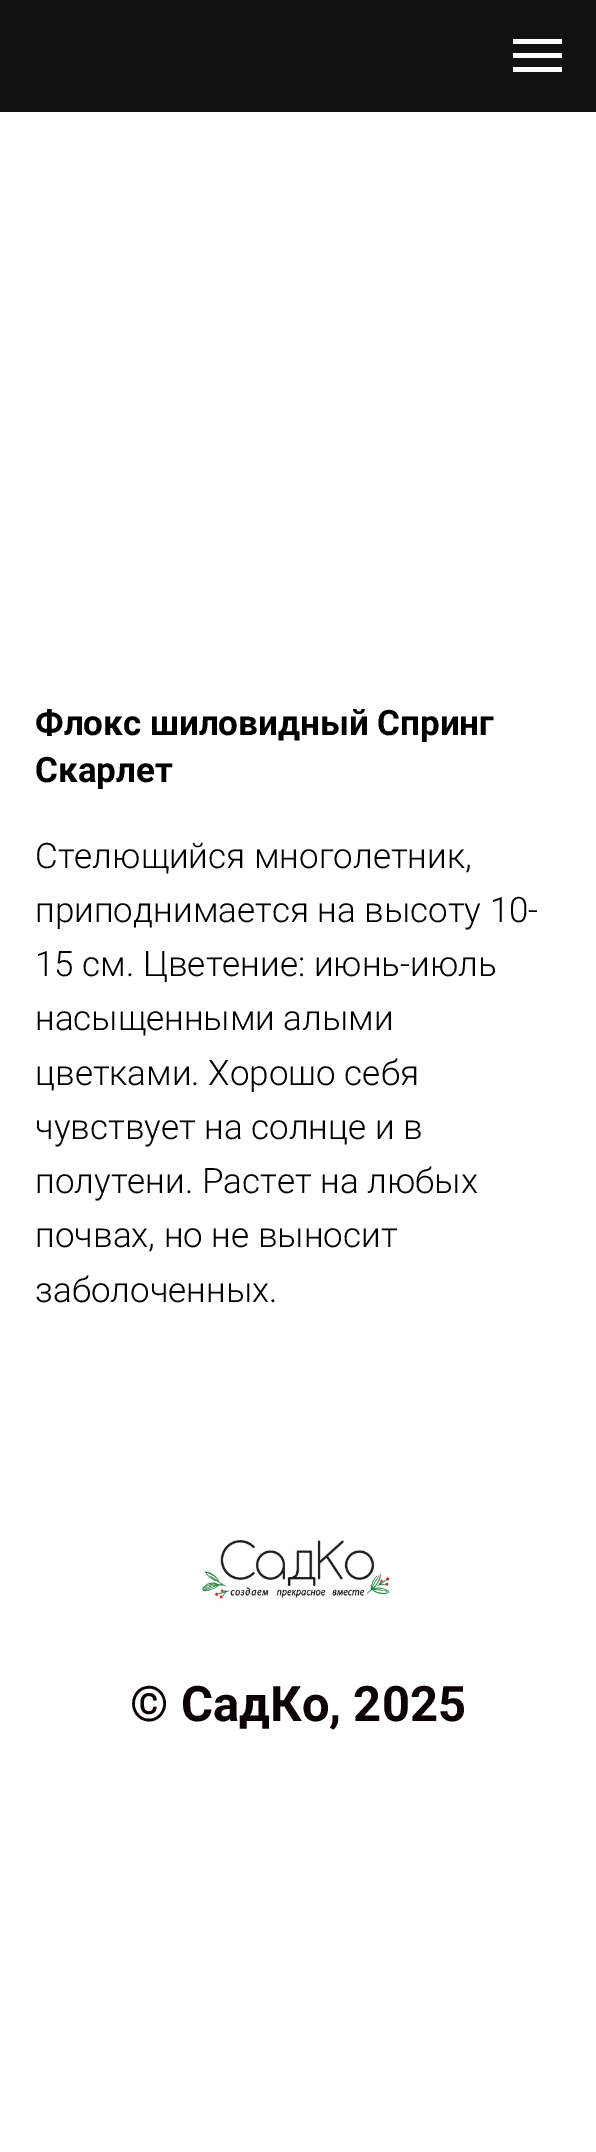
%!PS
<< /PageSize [596 2152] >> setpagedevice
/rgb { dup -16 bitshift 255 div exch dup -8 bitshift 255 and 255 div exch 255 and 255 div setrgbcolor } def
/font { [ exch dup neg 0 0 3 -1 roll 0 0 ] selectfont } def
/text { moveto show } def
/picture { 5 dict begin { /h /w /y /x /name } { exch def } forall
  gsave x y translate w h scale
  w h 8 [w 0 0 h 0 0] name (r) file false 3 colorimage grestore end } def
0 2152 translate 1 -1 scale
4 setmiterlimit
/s1 { /Roboto-Bold 35 font 16#000000 rgb } def
/s2 { /Roboto-Light 35 font 16#000000 rgb } def
/s3 { /Roboto-Bold 49 font 16#0D0202 rgb } def
16#FFFFFF rgb
0 0 596 2152 rectfill
16#111111 rgb
0 0 596 112 rectfill
16#FFFFFF rgb
513 39 49 5 rectfill
513 53 49 5 rectfill
513 67 49 5 rectfill
s1
(Флокс шиловидный Спринг) 35 735 text
(Скарлет) 35 782 text
s2
(Стелющийся многолетник,) 35 868 text
(приподнимается на высоту 10-) 35 922 text
(15 см. Цветение: июнь-июль) 35 976 text
(насыщенными алыми) 35 1030 text
(цветками. Хорошо себя) 35 1085 text
(чувствует на солнце и в) 35 1139 text
(полутени. Растет на любых) 35 1193 text
(почвах, но не выносит) 35 1247 text
(заболоченных.) 35 1302 text
(pic1.raw) 201 1539 192 63 picture
s3
(© СадКо, 2025) 130 1721 text
showpage
